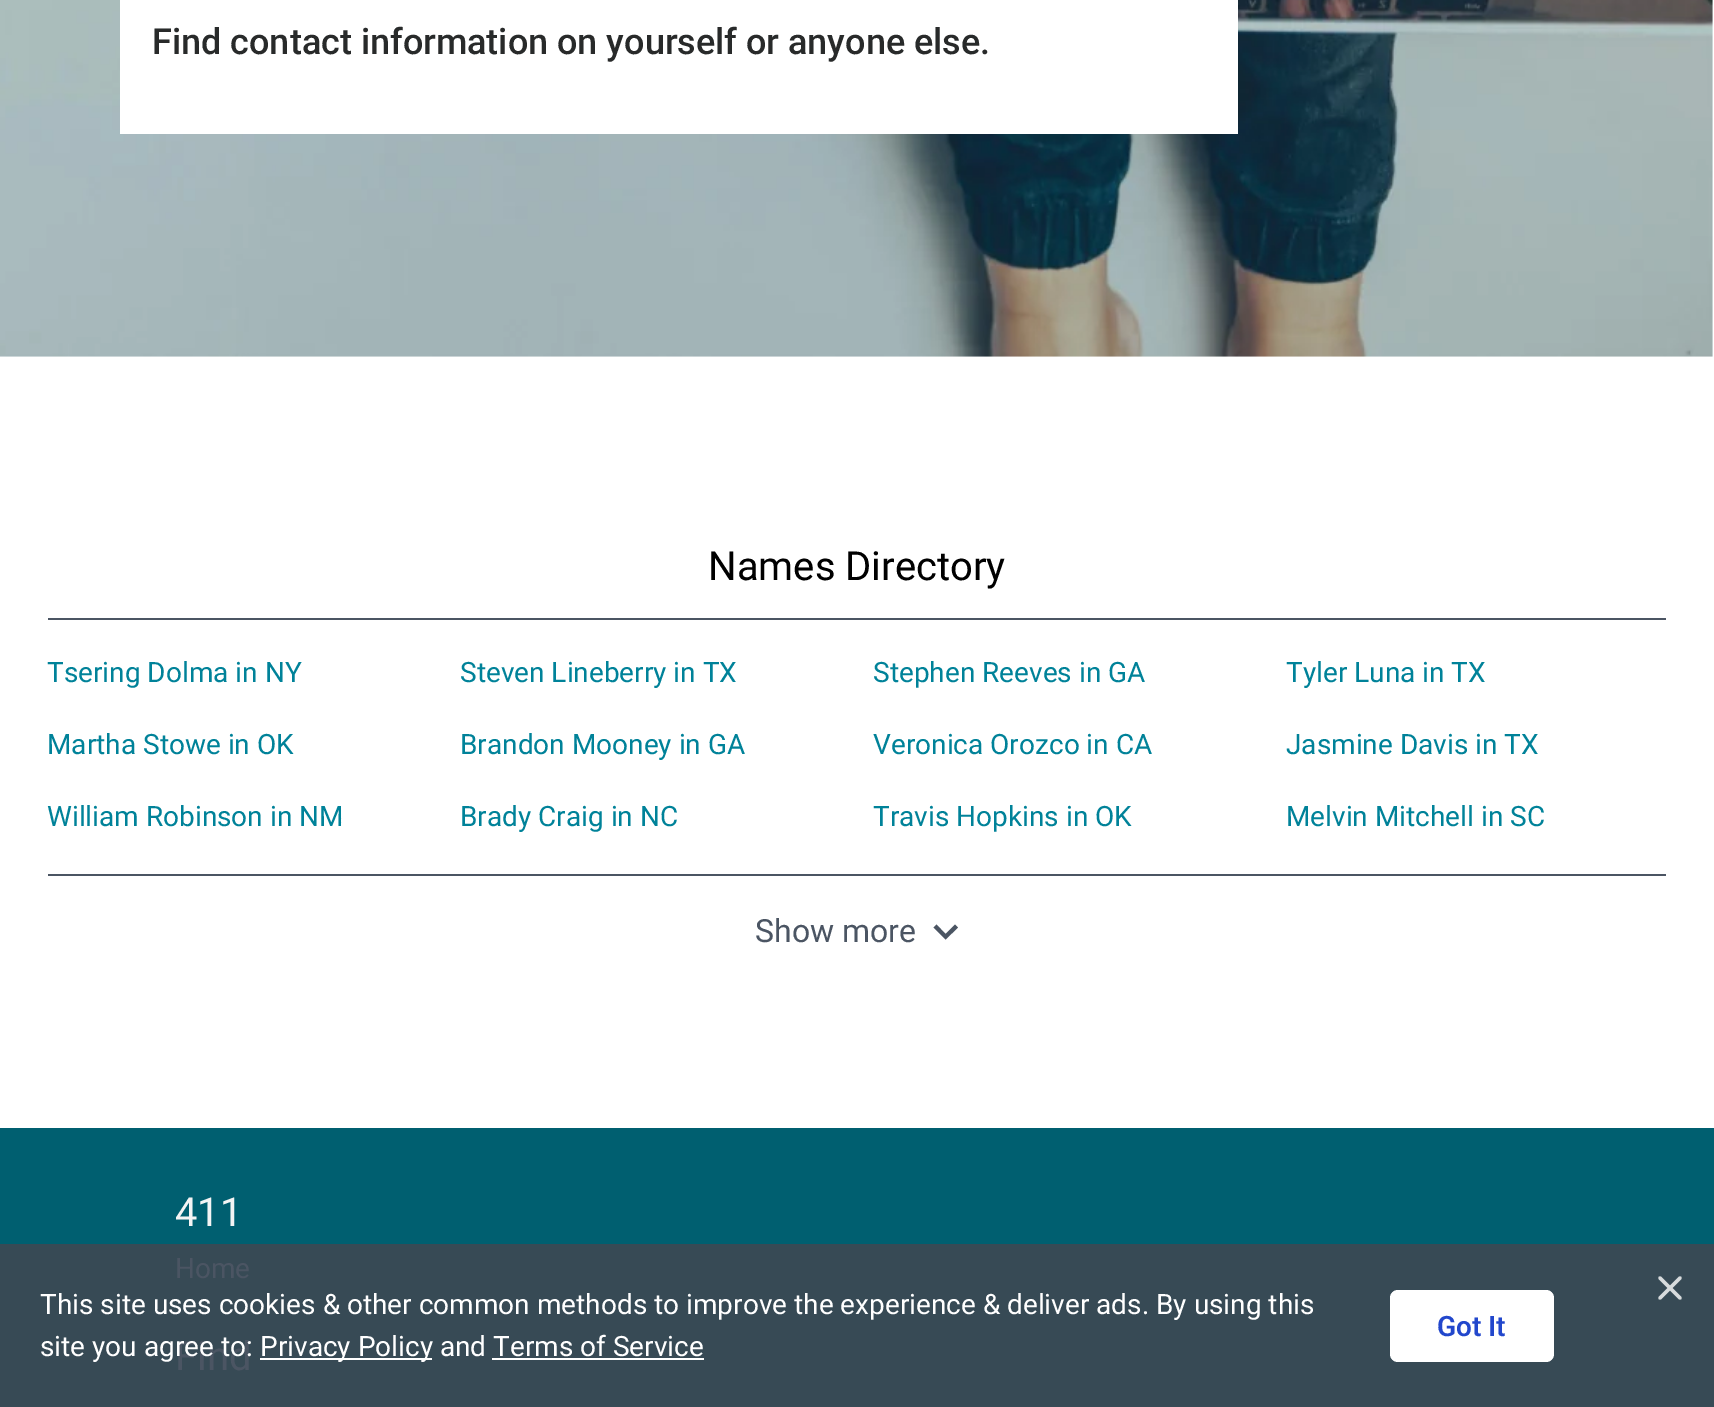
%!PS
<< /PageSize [1714 1407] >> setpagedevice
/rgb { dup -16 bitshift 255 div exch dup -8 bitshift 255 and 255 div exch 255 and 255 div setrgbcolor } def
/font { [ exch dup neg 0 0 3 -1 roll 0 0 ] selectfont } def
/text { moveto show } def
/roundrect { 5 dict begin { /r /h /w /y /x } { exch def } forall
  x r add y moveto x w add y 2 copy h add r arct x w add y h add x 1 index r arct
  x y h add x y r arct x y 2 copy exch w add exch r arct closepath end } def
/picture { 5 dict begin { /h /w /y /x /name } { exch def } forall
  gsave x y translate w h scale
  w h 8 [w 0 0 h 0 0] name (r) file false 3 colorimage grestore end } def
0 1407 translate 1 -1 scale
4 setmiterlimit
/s1 { /Roboto-Medium 36 font 16#282A2A rgb } def
/s2 { /Roboto-Regular 40 font 16#000000 rgb } def
/s3 { /Roboto-Regular 28 font 16#008299 rgb } def
/s4 { /Roboto-Regular 32 font 16#4B5563 rgb } def
/s5 { /Roboto-Regular 40 font 16#F4F4F4 rgb } def
/s6 { /Roboto-Regular 28 font 16#4B5563 rgb } def
/s7 { /Roboto-Regular 40 font 16#4B5563 rgb } def
/s8 { /Roboto-Regular 28 font 16#FFFFFF rgb } def
/s9 { /Roboto-SemiBold 28 font 16#2247CC rgb } def
16#FFFFFF rgb
0 0 1714 1407 rectfill
(pic1.raw) 0 0 1713 357 picture
120 0 1118 134 rectfill
s1
(Find contact information on yourself or anyone else.) 152 54 text
s2
(Names Directory) 708 580 text
16#4B5563 rgb
48 618 1618 2 rectfill
s3
(Tsering Dolma in NY) 47 682 text
(Steven Lineberry in TX) 460 682 text
(Stephen Reeves in GA) 873 682 text
(Tyler Luna in TX) 1286 682 text
(Martha Stowe in OK) 47 754 text
(Brandon Mooney in GA) 460 754 text
(Veronica Orozco in CA) 873 754 text
(Jasmine Davis in TX) 1286 754 text
(William Robinson in NM) 47 826 text
(Brady Craig in NC) 460 826 text
(Travis Hopkins in OK) 873 826 text
(Melvin Mitchell in SC) 1286 826 text
16#4B5563 rgb
48 874 1618 2 rectfill
s4
(Show more) 755 942 text
936.5 924.5 moveto 945.5 934 lineto 955 924.5 lineto 958 927.5 lineto 945.5 939.5 lineto 933.5 927.5 lineto closepath fill
16#005F70 rgb
0 1128 1714 116 rectfill
16#374A55 rgb
0 1244 1714 163 rectfill
s5
(411) 175 1226 text
s6
(Home) 175 1278 text
s7
(Find) 175 1370 text
16#D7DBDD rgb
3.3 setlinewidth
1 setlinecap
1 setlinejoin
1680 1278 moveto 1660 1298 lineto 1660 1278 moveto 1680 1298 lineto stroke
s8
(This site uses cookies & other common methods to improve the experience & deliver ads. By using this) 40 1314 text
(site you agree to:) 40 1356 text
260 1358 172 2 rectfill
(Privacy Policy and Terms of Service) 260 1356 text
492 1358 212 2 rectfill
1390 1290 164 72 8 roundrect fill
s9
(Got It) 1437 1336 text
showpage
